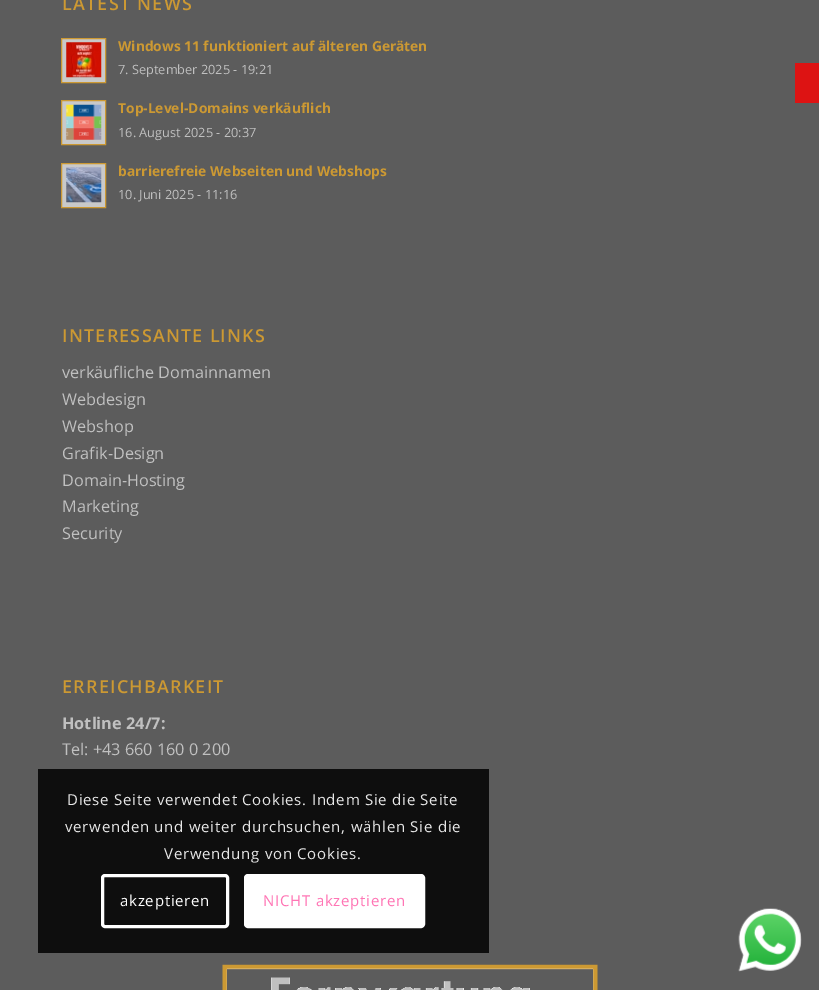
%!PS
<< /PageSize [819 990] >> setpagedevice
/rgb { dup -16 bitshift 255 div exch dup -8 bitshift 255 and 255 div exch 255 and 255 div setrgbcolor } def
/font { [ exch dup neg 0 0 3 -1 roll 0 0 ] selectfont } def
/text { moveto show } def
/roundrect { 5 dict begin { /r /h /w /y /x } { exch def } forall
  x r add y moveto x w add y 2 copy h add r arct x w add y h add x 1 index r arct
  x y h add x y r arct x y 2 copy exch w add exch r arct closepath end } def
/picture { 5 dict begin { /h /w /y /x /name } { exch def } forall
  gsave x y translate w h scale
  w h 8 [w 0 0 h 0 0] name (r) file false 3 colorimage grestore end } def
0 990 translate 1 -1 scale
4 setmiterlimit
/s1 { /OpenSans-Bold 13.8 font 16#CC9933 rgb } def
/s2 { /OpenSans-Regular 12.75 font 16#C0C0C0 rgb } def
/s3 { /OpenSans-Regular 16.25 font 16#C0C0C0 rgb } def
/s4 { /OpenSans-Bold 16.25 font 16#C0C0C0 rgb } def
16#5C5C5C rgb
0 0 819 990 rectfill
16#0E0E0E rgb
38 769 451 184 rectfill
/OpenSans-SemiBold 17.9 font
16#CC9933 rgb
62 10 moveto 1.25 0 (LATEST NEWS) ashow
16#C9C9C9 rgb
61.5 38.5 moveto 105.5 38.5 lineto 105.5 82.5 lineto 61.5 82.5 lineto closepath gsave fill grestore
16#CC9933 rgb
stroke
(pic1.raw) 66 42 36 36 picture
s1
(Windows 11 funktioniert auf älteren Geräten) 118 51 text
s2
(7. September 2025 - 19:21) 118 74 text
16#C9C9C9 rgb
61.5 100.5 moveto 105.5 100.5 lineto 105.5 144.5 lineto 61.5 144.5 lineto closepath gsave fill grestore
16#CC9933 rgb
stroke
(pic2.raw) 66 104 36 36 picture
s1
(Top-Level-Domains verkäuflich) 118 113 text
s2
(16. August 2025 - 20:37) 118 137 text
16#C9C9C9 rgb
61.5 163.5 moveto 105.5 163.5 lineto 105.5 207.5 lineto 61.5 207.5 lineto closepath gsave fill grestore
16#CC9933 rgb
stroke
(pic3.raw) 66 167 36 36 picture
s1
(barrierefreie Webseiten und Webshops) 118 176 text
s2
(10. Juni 2025 - 11:16) 118 199 text
/OpenSans-SemiBold 17.9 font
16#CC9933 rgb
62 342 moveto 1.25 0 (INTERESSANTE LINKS) ashow
s3
(verkäufliche Domainnamen) 62 378 text
(Webdesign) 62 405 text
(Webshop) 62 432 text
(Grafik-Design) 62 459 text
(Domain-Hosting) 62 486 text
(Marketing) 62 512 text
(Security) 62 539 text
/OpenSans-SemiBold 17.9 font
16#CC9933 rgb
62 693 moveto 1.25 0 (ERREICHBARKEIT) ashow
s4
(Hotline 24/7:) 62 729 text
s3
(Tel: +43 660 160 0 200) 62 755 text
(pic4.raw) 222 964 376 26 picture
16#DD1313 rgb
795 63 24 40 rectfill
/OpenSans-Regular 15 font
16#E7E7E7 rgb
67 805 moveto 0.75 0 (Diese Seite verwendet Cookies. Indem Sie die Seite) ashow
65 832 moveto 0.75 0 (verwenden und weiter durchsuchen, wählen Sie die) ashow
164 859 moveto 0.75 0 (Verwendung von Cookies.) ashow
16#FFFFFF rgb
3 setlinewidth
102.5 875.5 125 51 2.5 roundrect stroke
120 906 moveto 0.75 0 (akzeptieren) ashow
245.5 875.5 178 51 2.5 roundrect gsave fill grestore
stroke
16#FF75B5 rgb
263 906 moveto 0.75 0 (NICHT akzeptieren) ashow
(pic5.raw) 738 908 64 64 picture
showpage
